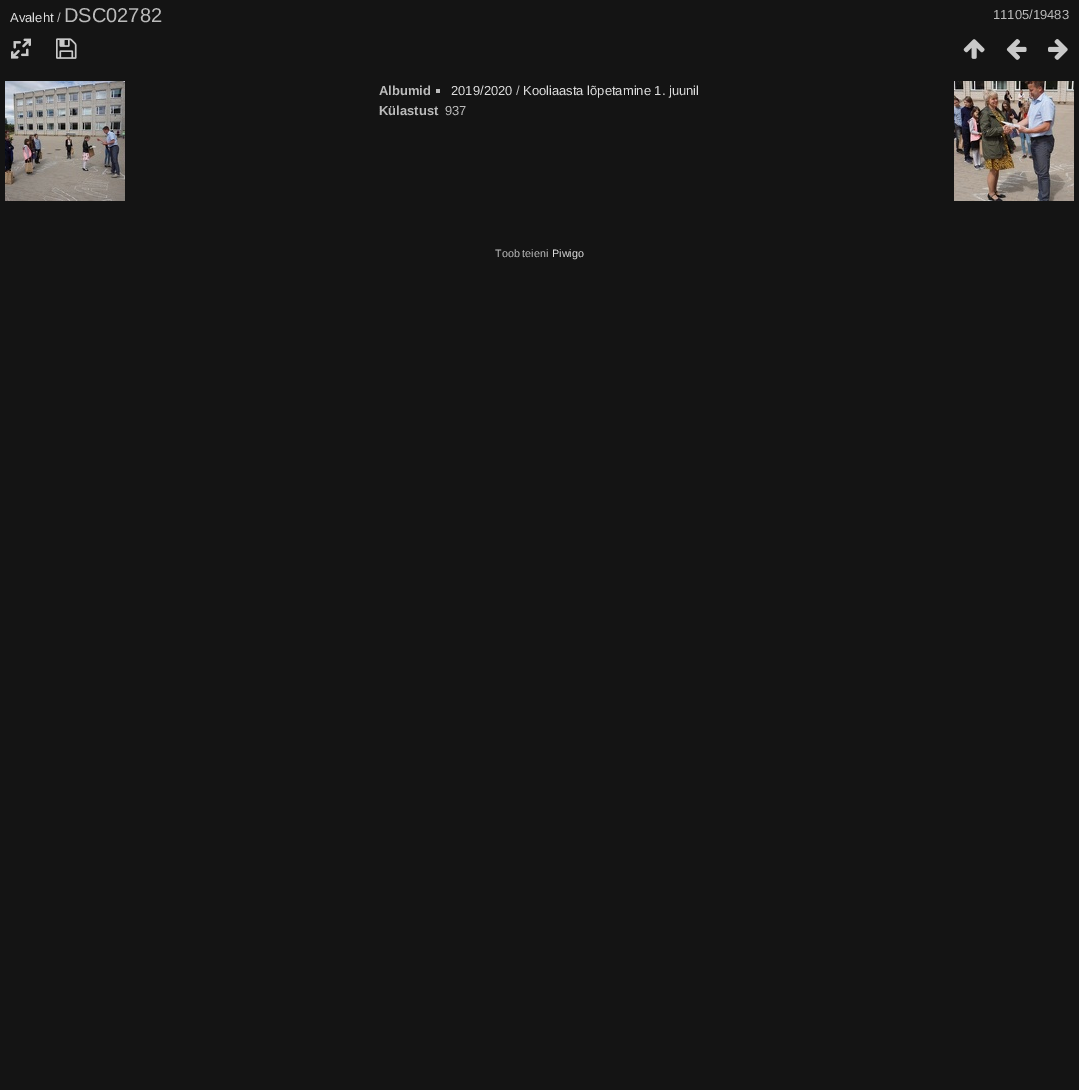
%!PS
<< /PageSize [1079 1090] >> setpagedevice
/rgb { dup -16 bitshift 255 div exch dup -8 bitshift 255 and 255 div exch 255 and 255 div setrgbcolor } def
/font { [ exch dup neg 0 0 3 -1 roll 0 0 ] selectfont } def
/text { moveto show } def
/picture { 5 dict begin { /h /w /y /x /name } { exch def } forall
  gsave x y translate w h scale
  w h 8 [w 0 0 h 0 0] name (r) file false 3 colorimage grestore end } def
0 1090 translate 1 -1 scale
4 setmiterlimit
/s1 { /LiberationSans-Regular 13 font 16#DDDDDD rgb } def
/s2 { /LiberationSans-Regular 13 font 16#BBBBBB rgb } def
/s3 { /LiberationSans-Regular 20 font 16#BBBBBB rgb } def
/s4 { /LiberationSans-Bold 13 font 16#BBBBBB rgb } def
/s5 { /LiberationSans-Regular 10.75 font 16#BBBBBB rgb } def
/s6 { /LiberationSans-Regular 10.75 font 16#DDDDDD rgb } def
16#141414 rgb
0 0 1079 1090 rectfill
s1
(Avaleht) 10 22 text
s2
(/) 57 22 text
s3
(DSC02782) 64 22 text
s2
(11105/19483) 993 19 text
(pic1.raw) 11 38 20 21 picture
(pic2.raw) 56 38 21 21 picture
(pic3.raw) 963 39 22 20 picture
(pic4.raw) 1006 39 21 21 picture
(pic5.raw) 1048 39 20 21 picture
(pic6.raw) 5 81 120 120 picture
(pic7.raw) 954 81 120 120 picture
s4
(Albumid) 379 95 text
436 89 4 4 rectfill
s1
(2019/2020) 451 95 text
s2
(/) 516 95 text
s1
(Kooliaasta lõpetamine 1. juunil) 523 95 text
s4
(Külastust) 379 115 text
s2
(937) 445 115 text
s5
(Toob teieni) 495 257 text
s6
(Piwigo) 552 257 text
showpage
